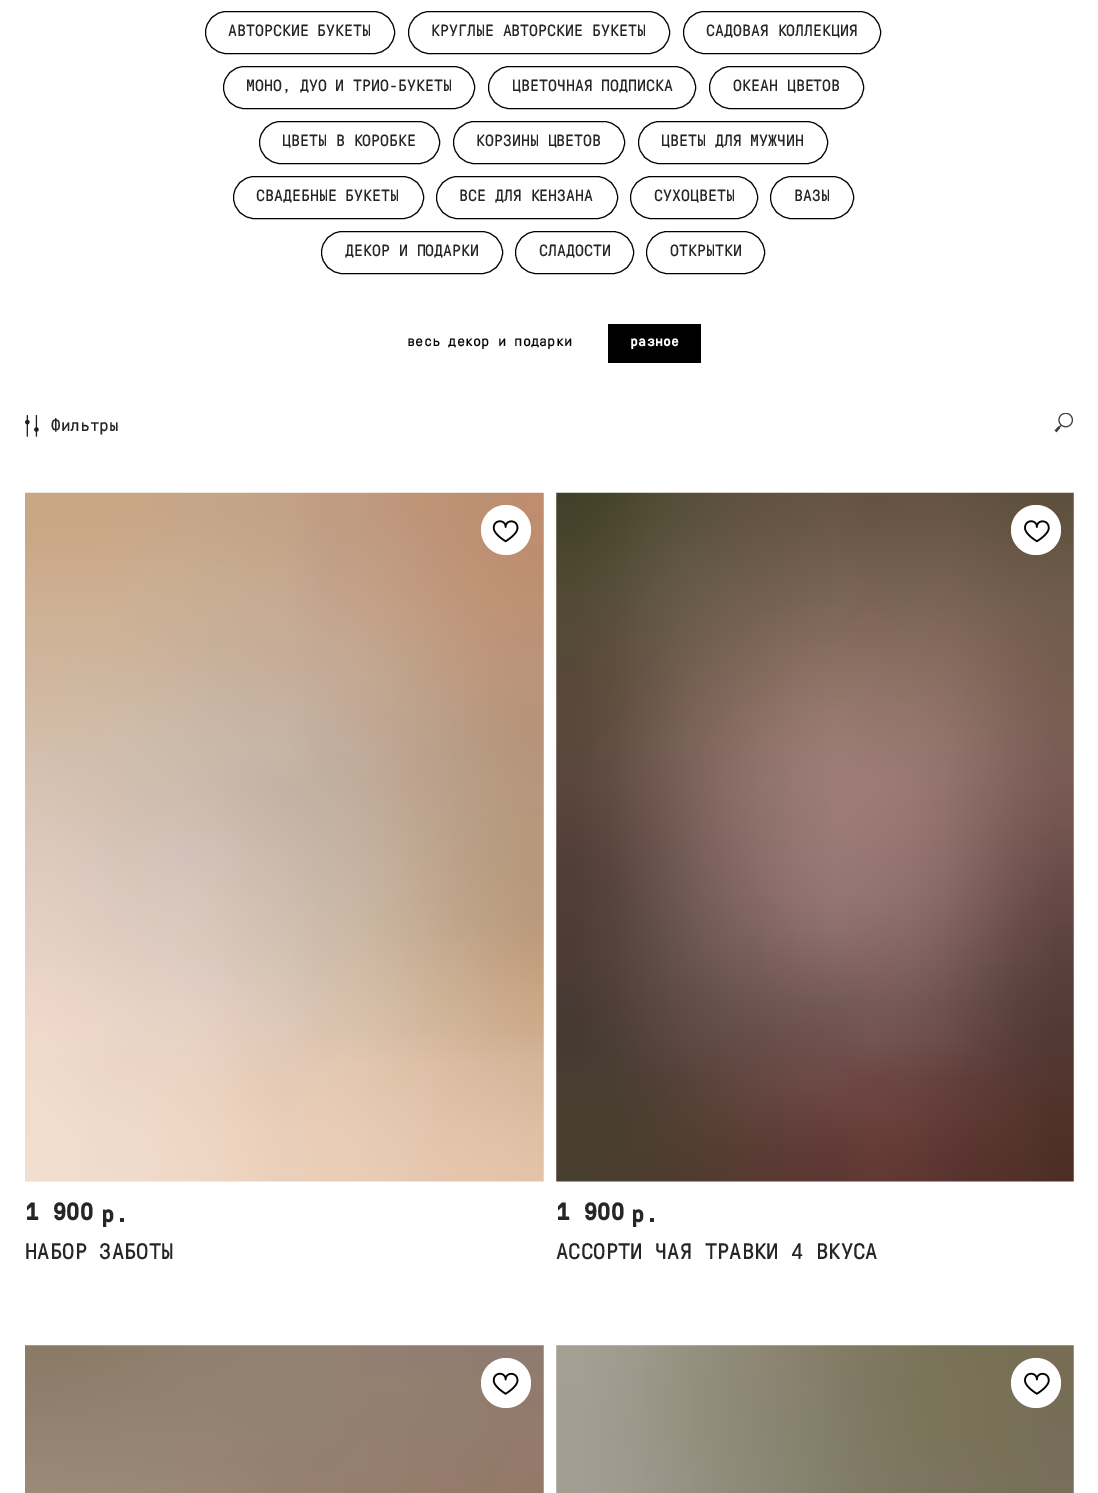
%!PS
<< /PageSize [1098 1493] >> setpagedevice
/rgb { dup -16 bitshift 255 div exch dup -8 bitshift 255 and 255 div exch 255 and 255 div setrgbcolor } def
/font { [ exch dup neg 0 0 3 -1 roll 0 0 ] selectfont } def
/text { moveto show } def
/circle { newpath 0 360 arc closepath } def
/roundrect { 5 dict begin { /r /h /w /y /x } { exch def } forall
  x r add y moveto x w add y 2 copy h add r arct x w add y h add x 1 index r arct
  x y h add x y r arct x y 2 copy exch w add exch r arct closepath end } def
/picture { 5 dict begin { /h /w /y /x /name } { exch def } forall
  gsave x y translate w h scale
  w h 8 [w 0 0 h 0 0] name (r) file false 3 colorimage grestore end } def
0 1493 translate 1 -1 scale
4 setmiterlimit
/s1 { /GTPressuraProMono-Regular 16.25 font 16#262626 rgb } def
/s2 { /GTPressuraProMono-Regular 15 font 16#050505 rgb } def
/s3 { /GTPressuraProMono-Bold 15 font 16#FFFFFF rgb } def
/s4 { /GTPressuraProMono-Regular 17.5 font 16#262626 rgb } def
/s5 { /GTPressuraProMono-Bold 25 font 16#262626 rgb } def
/s6 { /GTPressuraProMono-Regular 22.5 font 16#262626 rgb } def
16#FFFFFF rgb
0 0 1098 1493 rectfill
16#000000 rgb
205.5 11.5 189 42 21 roundrect stroke
s1
(АВТОРСКИЕ БУКЕТЫ) 228 36 text
16#000000 rgb
408.5 11.5 261 42 21 roundrect stroke
s1
(КРУГЛЫЕ АВТОРСКИЕ БУКЕТЫ) 431 36 text
16#000000 rgb
683.5 11.5 197 42 21 roundrect stroke
s1
(САДОВАЯ КОЛЛЕКЦИЯ) 706 36 text
16#000000 rgb
223.5 66.5 251 42 21 roundrect stroke
s1
(МОНО, ДУО И ТРИО-БУКЕТЫ) 246 91 text
16#000000 rgb
488.5 66.5 207 42 21 roundrect stroke
s1
(ЦВЕТОЧНАЯ ПОДПИСКА) 512 91 text
16#000000 rgb
709.5 66.5 154 42 21 roundrect stroke
s1
(ОКЕАН ЦВЕТОВ) 733 91 text
16#000000 rgb
259.5 121.5 180 42 21 roundrect stroke
s1
(ЦВЕТЫ В КОРОБКЕ) 282 146 text
16#000000 rgb
453.5 121.5 171 42 21 roundrect stroke
s1
(КОРЗИНЫ ЦВЕТОВ) 476 146 text
16#000000 rgb
638.5 121.5 189 42 21 roundrect stroke
s1
(ЦВЕТЫ ДЛЯ МУЖЧИН) 661 146 text
16#000000 rgb
233.5 176.5 190 42 21 roundrect stroke
s1
(СВАДЕБНЫЕ БУКЕТЫ) 256 201 text
16#000000 rgb
436.5 176.5 181 42 21 roundrect stroke
s1
(ВСЕ ДЛЯ КЕНЗАНА) 459 201 text
16#000000 rgb
630.5 176.5 127 42 21 roundrect stroke
s1
(СУХОЦВЕТЫ) 654 201 text
16#000000 rgb
770.5 176.5 83 42 21 roundrect stroke
s1
(ВАЗЫ) 794 201 text
16#000000 rgb
321.5 231.5 181 42 21 roundrect stroke
s1
(ДЕКОР И ПОДАРКИ) 345 256 text
16#000000 rgb
515.5 231.5 118 42 21 roundrect stroke
s1
(СЛАДОСТИ) 539 256 text
16#000000 rgb
646.5 231.5 118 42 21 roundrect stroke
s1
(ОТКРЫТКИ) 670 256 text
s2
(весь декор и подарки) 407 346 text
16#000000 rgb
608 324 93 39 rectfill
s3
(разное) 630 346 text
(pic1.raw) 25 415 14 22 picture
s4
(Фильтры) 51 431 text
(pic2.raw) 1054 413 20 20 picture
(pic3.raw) 25 492 519 690 picture
16#FFFFFF rgb
506 530 25 circle fill
(pic4.raw) 492 520 27 23 picture
s5
(1 900) 25 1220 text
(р.) 101 1222 text
s6
(НАБОР ЗАБОТЫ) 25 1259 text
(pic5.raw) 556 492 518 690 picture
16#FFFFFF rgb
1036 530 25 circle fill
(pic6.raw) 1024 520 26 23 picture
s5
(1 900) 556 1220 text
(р.) 631 1222 text
s6
(АССОРТИ ЧАЯ ТРАВКИ 4 ВКУСА) 556 1259 text
(pic7.raw) 25 1345 519 148 picture
16#FFFFFF rgb
506 1383 25 circle fill
(pic8.raw) 492 1372 27 23 picture
(pic9.raw) 556 1345 518 148 picture
1036 1383 25 circle fill
(pic10.raw) 1024 1372 26 23 picture
showpage
